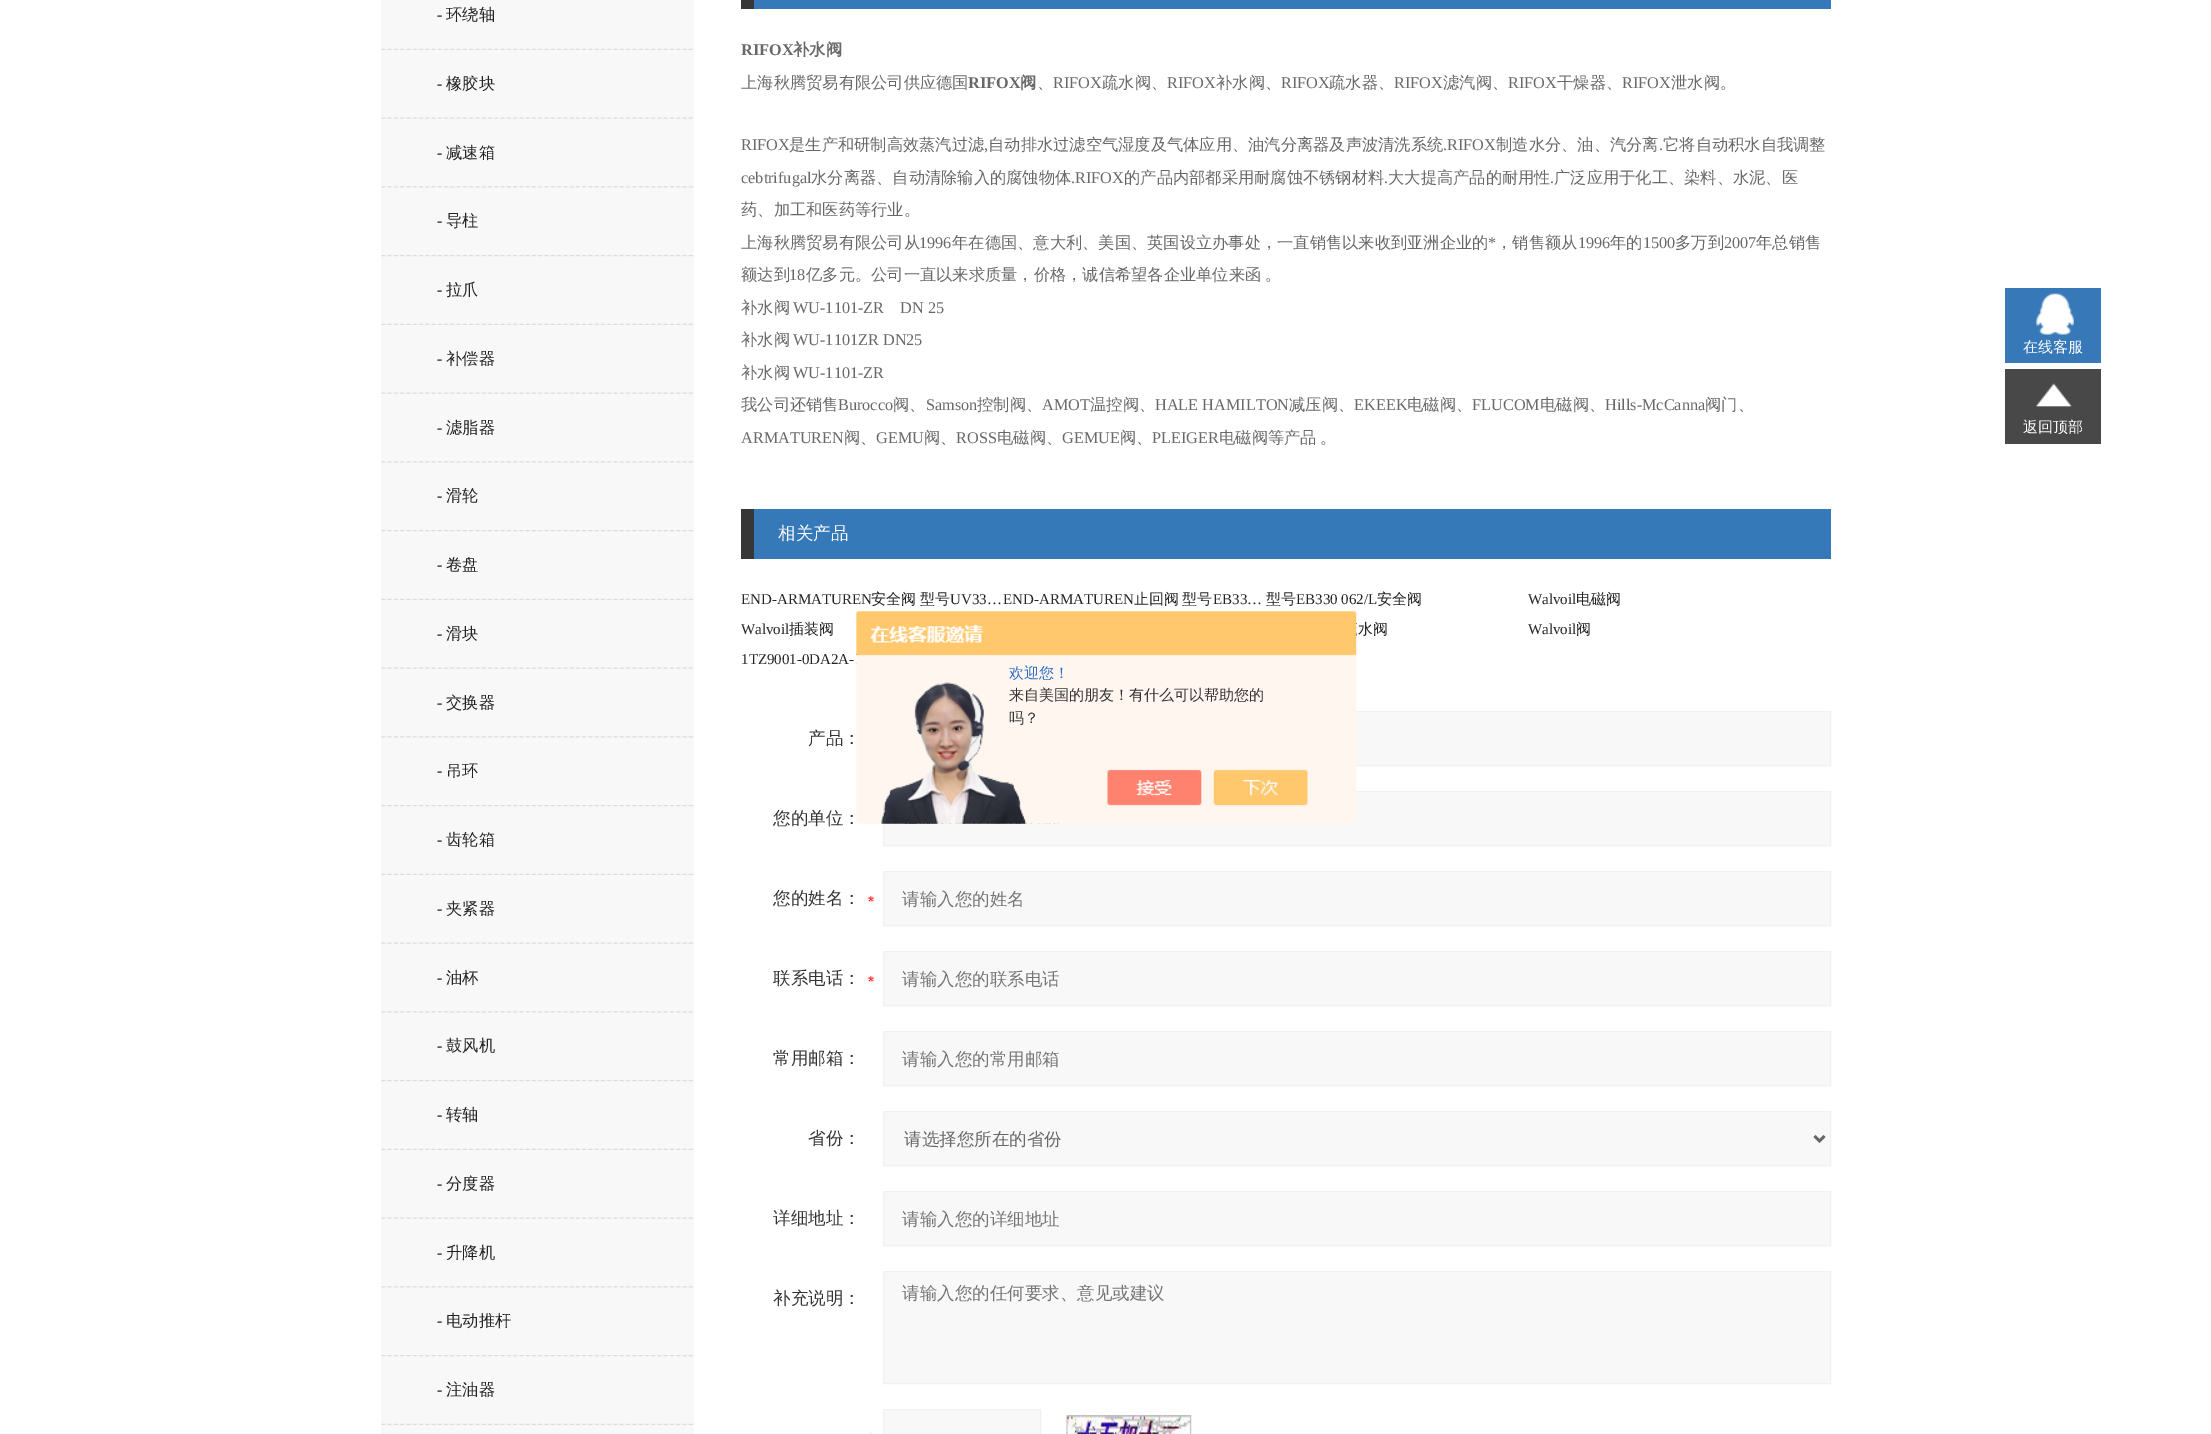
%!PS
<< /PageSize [2211 1434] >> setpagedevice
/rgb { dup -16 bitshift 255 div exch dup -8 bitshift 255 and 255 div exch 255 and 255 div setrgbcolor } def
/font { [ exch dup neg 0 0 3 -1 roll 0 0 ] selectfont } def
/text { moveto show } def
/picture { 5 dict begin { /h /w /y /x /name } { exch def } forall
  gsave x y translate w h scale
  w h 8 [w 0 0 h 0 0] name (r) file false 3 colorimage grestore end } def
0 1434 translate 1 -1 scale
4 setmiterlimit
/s1 { /LiberationSerif-Regular 16.25 font 16#222322 rgb } def
/s2 { /WenQuanYiZenHei-Medium 16.25 font 16#222322 rgb } def
/s3 { /LiberationSerif-Bold 16.25 font 16#686868 rgb } def
/s4 { /WenQuanYiZenHei-Bold 16.25 font 16#686868 rgb } def
/s5 { /WenQuanYiZenHei-Medium 16.25 font 16#686868 rgb } def
/s6 { /LiberationSerif-Regular 16.25 font 16#686868 rgb } def
/s7 { /WenQuanYiZenHei-Medium 17.5 font 16#FFFFFF rgb } def
/s8 { /LiberationSerif-Regular 15 font 16#222322 rgb } def
/s9 { /WenQuanYiZenHei-Medium 15 font 16#222322 rgb } def
/s10 { /WenQuanYiZenHei-Medium 17.5 font 16#333333 rgb } def
/s11 { /WenQuanYiZenHei-Medium 17.5 font 16#757575 rgb } def
/s12 { /WenQuanYiZenHei-Medium 17.5 font 16#686868 rgb } def
/s13 { /WenQuanYiZenHei-Medium 15 font 16#FFFFFF rgb } def
/s14 { /WenQuanYiZenHei-Medium 15 font 16#2E6EC6 rgb } def
/s15 { /WenQuanYiZenHei-Medium 15 font 16#333333 rgb } def
16#FFFFFF rgb
0 0 2211 1434 rectfill
16#F8F8F8 rgb
381 0 313 1434 rectfill
(pic1.raw) 381 48 313 2 picture
s1
(-) 437 20 text
s2
(环绕轴) 446 20 text
(pic2.raw) 381 117 313 2 picture
s1
(-) 437 89 text
s2
(橡胶块) 446 89 text
(pic3.raw) 381 186 313 2 picture
s1
(-) 437 158 text
s2
(减速箱) 446 158 text
(pic4.raw) 381 255 313 2 picture
s1
(-) 437 226 text
s2
(导柱) 446 226 text
(pic1.raw) 381 323 313 2 picture
s1
(-) 437 295 text
s2
(拉爪) 446 295 text
(pic2.raw) 381 392 313 2 picture
s1
(-) 437 364 text
s2
(补偿器) 446 364 text
(pic3.raw) 381 461 313 2 picture
s1
(-) 437 433 text
s2
(滤脂器) 446 433 text
(pic4.raw) 381 530 313 2 picture
s1
(-) 437 501 text
s2
(滑轮) 446 501 text
(pic1.raw) 381 598 313 2 picture
s1
(-) 437 570 text
s2
(卷盘) 446 570 text
(pic2.raw) 381 667 313 2 picture
s1
(-) 437 639 text
s2
(滑块) 446 639 text
(pic3.raw) 381 736 313 2 picture
s1
(-) 437 708 text
s2
(交换器) 446 708 text
(pic4.raw) 381 805 313 2 picture
s1
(-) 437 776 text
s2
(吊环) 446 776 text
(pic1.raw) 381 873 313 2 picture
s1
(-) 437 845 text
s2
(齿轮箱) 446 845 text
(pic2.raw) 381 942 313 2 picture
s1
(-) 437 914 text
s2
(夹紧器) 446 914 text
(pic3.raw) 381 1011 313 2 picture
s1
(-) 437 983 text
s2
(油杯) 446 983 text
(pic4.raw) 381 1080 313 2 picture
s1
(-) 437 1051 text
s2
(鼓风机) 446 1051 text
(pic1.raw) 381 1148 313 2 picture
s1
(-) 437 1120 text
s2
(转轴) 446 1120 text
(pic2.raw) 381 1217 313 2 picture
s1
(-) 437 1189 text
s2
(分度器) 446 1189 text
(pic3.raw) 381 1286 313 2 picture
s1
(-) 437 1258 text
s2
(升降机) 446 1258 text
(pic4.raw) 381 1355 313 2 picture
s1
(-) 437 1326 text
s2
(电动推杆) 446 1326 text
(pic1.raw) 381 1423 313 2 picture
s1
(-) 437 1395 text
s2
(注油器) 446 1395 text
16#3679B8 rgb
754 0 1077 9 rectfill
16#373737 rgb
741 0 13 9 rectfill
s3
(RIFOX) 741 55 text
s4
(补水阀) 793 55 text
s5
(上海秋腾贸易有限公司供应德国) 741 88 text
s3
(RIFOX) 968 88 text
s4
(阀) 1020 88 text
s5
(、) 1037 88 text
s6
(RIFOX) 1053 88 text
s5
(疏水阀、) 1102 88 text
s6
(RIFOX) 1167 88 text
s5
(补水阀、) 1216 88 text
s6
(RIFOX) 1281 88 text
s5
(疏水器、) 1329 88 text
s6
(RIFOX) 1394 88 text
s5
(滤汽阀、) 1443 88 text
s6
(RIFOX) 1508 88 text
s5
(干燥器、) 1557 88 text
s6
(RIFOX) 1622 88 text
s5
(泄水阀。) 1671 88 text
s6
(RIFOX) 741 150 text
s5
(是生产和研制高效蒸汽过滤) 789 150 text
s6
(,) 984 150 text
s5
(自动排水过滤空气湿度及气体应用、油汽分离器及声波清洗系统) 988 150 text
s6
(.RIFOX) 1443 150 text
s5
(制造水分、油、汽分离) 1496 150 text
s6
(.) 1659 150 text
s5
(它将自动积水自我调整) 1663 150 text
s6
(cebtrifugal) 741 183 text
s5
(水分离器、自动清除输入的腐蚀物体) 811 183 text
s6
(.RIFOX) 1071 183 text
s5
(的产品内部都采用耐腐蚀不锈钢材料) 1124 183 text
s6
(.) 1384 183 text
s5
(大大提高产品的耐用性) 1388 183 text
s6
(.) 1550 183 text
s5
(广泛应用于化工、染料、水泥、医) 1554 183 text
(药、加工和医药等行业。) 741 215 text
(上海秋腾贸易有限公司从) 741 248 text
s6
(1996) 919 248 text
s5
(年在德国、意大利、美国、英国设立办事处，一直销售以来收到亚洲企业的) 952 248 text
s6
(*) 1488 248 text
s5
(，销售额从) 1496 248 text
s6
(1996) 1578 248 text
s5
(年的) 1610 248 text
s6
(1500) 1643 248 text
s5
(多万到) 1675 248 text
s6
(2007) 1724 248 text
s5
(年总销售) 1756 248 text
(额达到) 741 280 text
s6
(18) 789 280 text
/WenQuanYiZenHei-Medium 16.25 font
806 280 moveto -1 0 32 (亿多元。公司一直以来求质量，价格，诚信希望各企业单位来函 。) widthshow
(补水阀) 741 313 text
s6
(WU-1101-ZR    DN 25) 793 313 text
s5
(补水阀) 741 345 text
s6
(WU-1101ZR DN25) 793 345 text
s5
(补水阀) 741 378 text
s6
(WU-1101-ZR) 793 378 text
s5
(我公司还销售) 741 410 text
s6
(Burocco) 838 410 text
s5
(阀、) 893 410 text
s6
(Samson) 926 410 text
s5
(控制阀、) 977 410 text
s6
(AMOT) 1042 410 text
s5
(温控阀、) 1090 410 text
s6
(HALE HAMILTON) 1155 410 text
s5
(减压阀、) 1289 410 text
s6
(EKEEK) 1354 410 text
s5
(电磁阀、) 1407 410 text
s6
(FLUCOM) 1472 410 text
s5
(电磁阀、) 1540 410 text
s6
(Hills-McCanna) 1605 410 text
s5
(阀门、) 1705 410 text
s6
(ARMATUREN) 741 443 text
s5
(阀、) 844 443 text
s6
(GEMU) 876 443 text
s5
(阀、) 924 443 text
s6
(ROSS) 956 443 text
s5
(电磁阀、) 997 443 text
s6
(GEMUE) 1062 443 text
s5
(阀、) 1120 443 text
s6
(PLEIGER) 1152 443 text
/WenQuanYiZenHei-Medium 16.25 font
1219 443 moveto -1 0 32 (电磁阀等产品 。) widthshow
16#3679B8 rgb
754 509 1077 50 rectfill
16#373737 rgb
741 509 13 50 rectfill
s7
(相关产品) 778 539 text
s8
(END-ARMATUREN) 741 604 text
s9
(安全阀) 871 604 text
(型号) 920 604 text
s8
(UV33…) 950 604 text
(END-ARMATUREN) 1003 604 text
/WenQuanYiZenHei-Medium 15 font
1134 604 moveto -1 0 32 (止回阀 型号) widthshow
s8
(EB33…) 1213 604 text
s9
(型号) 1266 604 text
s8
(EB330 062/L) 1296 604 text
s9
(安全阀) 1377 604 text
s8
(Walvoil) 1528 604 text
s9
(电磁阀) 1576 604 text
s8
(Walvoil) 741 634 text
s9
(插装阀) 789 634 text
(水阀) 1358 634 text
s8
(Walvoil) 1528 634 text
s9
(阀) 1576 634 text
s8
(1TZ9001-0DA2A-) 741 664 text
s10
(产品：) 808 744 text
16#F8F8F8 rgb
1356 712 474 53 rectfill
16#F1F1F1 rgb
883.5 711.5 947 54 rectstroke
s10
(您的单位：) 773 824 text
16#F8F8F8 rgb
883.5 791.5 moveto 1830.5 791.5 lineto 1830.5 845.5 lineto 883.5 845.5 lineto closepath gsave fill grestore
16#F1F1F1 rgb
stroke
(pic5.raw) 867 896 7 6 picture
s10
(您的姓名：) 773 904 text
16#F8F8F8 rgb
883.5 871.5 moveto 1830.5 871.5 lineto 1830.5 925.5 lineto 883.5 925.5 lineto closepath gsave fill grestore
16#F1F1F1 rgb
stroke
s11
(请输入您的姓名) 902 905 text
(pic5.raw) 867 976 7 6 picture
s10
(联系电话：) 773 984 text
16#F8F8F8 rgb
883.5 951.5 moveto 1830.5 951.5 lineto 1830.5 1005.5 lineto 883.5 1005.5 lineto closepath gsave fill grestore
16#F1F1F1 rgb
stroke
s11
(请输入您的联系电话) 902 985 text
s10
(常用邮箱：) 773 1064 text
16#F8F8F8 rgb
883.5 1031.5 moveto 1830.5 1031.5 lineto 1830.5 1085.5 lineto 883.5 1085.5 lineto closepath gsave fill grestore
16#F1F1F1 rgb
stroke
s11
(请输入您的常用邮箱) 902 1065 text
s10
(省份：) 808 1144 text
16#F8F8F8 rgb
883.5 1111.5 moveto 1830.5 1111.5 lineto 1830.5 1165.5 lineto 883.5 1165.5 lineto closepath gsave fill grestore
16#F1F1F1 rgb
stroke
16#666666 rgb
2.5 setlinewidth
1814.5 1136 moveto 1819.5 1141 lineto 1824.5 1136 lineto stroke
s12
(请选择您所在的省份) 904 1145 text
s10
(详细地址：) 773 1224 text
16#F8F8F8 rgb
883.5 1191.5 moveto 1830.5 1191.5 lineto 1830.5 1245.5 lineto 883.5 1245.5 lineto closepath gsave fill grestore
16#F1F1F1 rgb
1 setlinewidth
stroke
s11
(请输入您的详细地址) 902 1225 text
s10
(补充说明：) 773 1304 text
16#F8F8F8 rgb
883.5 1271.5 moveto 1830.5 1271.5 lineto 1830.5 1383.5 lineto 883.5 1383.5 lineto closepath gsave fill grestore
16#F1F1F1 rgb
stroke
s11
(请输入您的任何要求、意见或建议) 902 1299 text
(pic6.raw) 870 1433 3 1 picture
16#F8F8F8 rgb
883.5 1409.5 moveto 1040.5 1409.5 lineto 1040.5 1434.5 lineto 883.5 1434.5 lineto closepath gsave fill grestore
16#F1F1F1 rgb
stroke
(pic7.raw) 1066 1415 126 19 picture
16#3779B8 rgb
2005 288 96 75 rectfill
(pic8.raw) 2036 293 38 42 picture
s13
(在线客服) 2023 352 text
16#484848 rgb
2005 369 96 75 rectfill
(pic9.raw) 2036 383 36 24 picture
s13
(返回顶部) 2023 432 text
(pic10.raw) 856 611 501 213 picture
s14
(欢迎您！) 1009 678 text
s15
(来自美国的朋友！有什么可以帮助您的) 1009 700 text
(吗？) 1009 723 text
showpage
